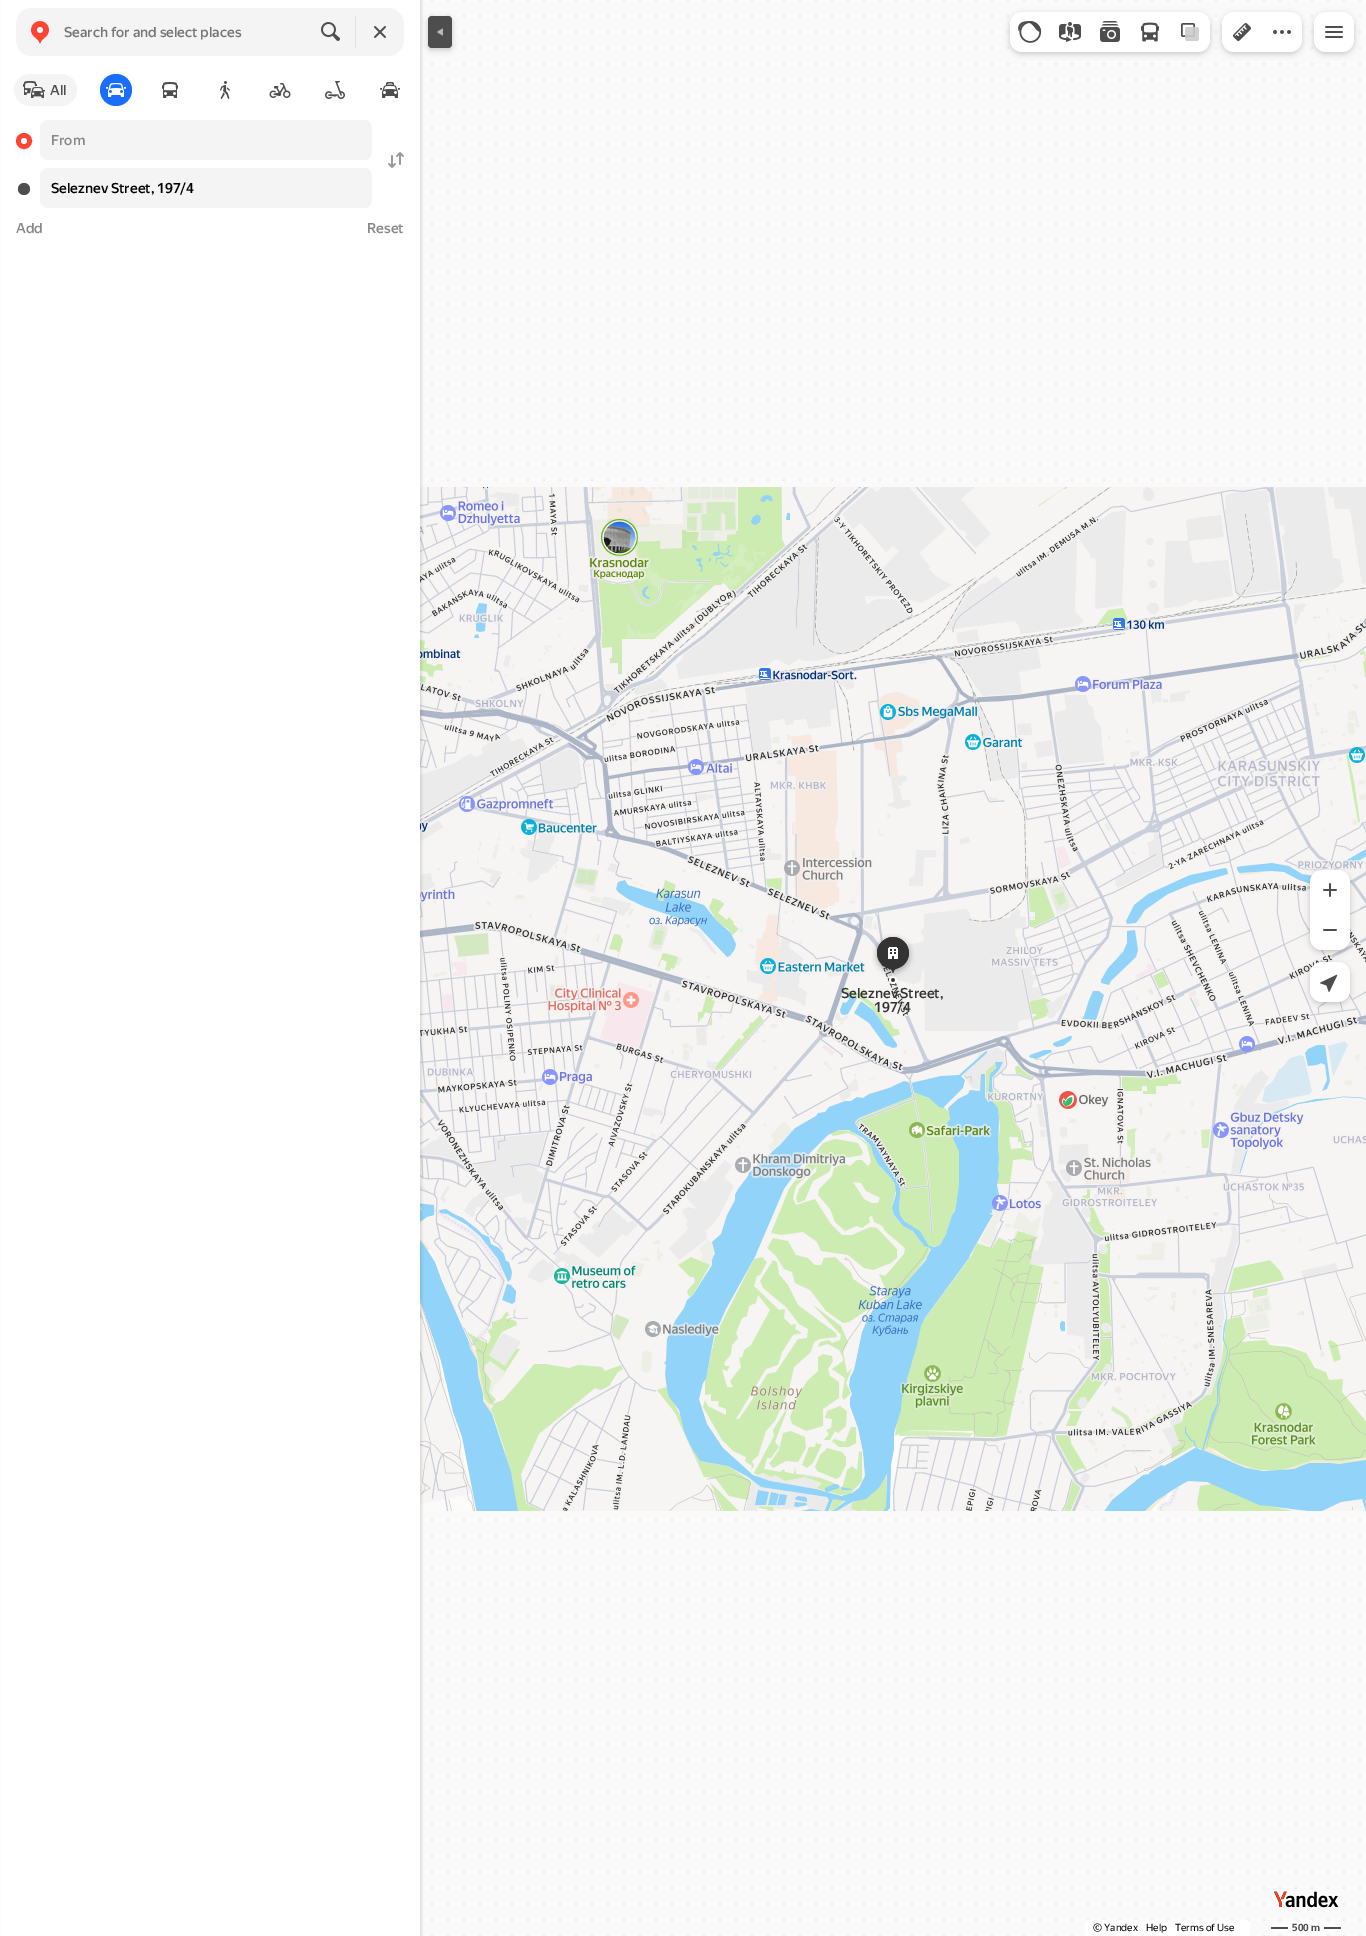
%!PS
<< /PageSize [1366 1936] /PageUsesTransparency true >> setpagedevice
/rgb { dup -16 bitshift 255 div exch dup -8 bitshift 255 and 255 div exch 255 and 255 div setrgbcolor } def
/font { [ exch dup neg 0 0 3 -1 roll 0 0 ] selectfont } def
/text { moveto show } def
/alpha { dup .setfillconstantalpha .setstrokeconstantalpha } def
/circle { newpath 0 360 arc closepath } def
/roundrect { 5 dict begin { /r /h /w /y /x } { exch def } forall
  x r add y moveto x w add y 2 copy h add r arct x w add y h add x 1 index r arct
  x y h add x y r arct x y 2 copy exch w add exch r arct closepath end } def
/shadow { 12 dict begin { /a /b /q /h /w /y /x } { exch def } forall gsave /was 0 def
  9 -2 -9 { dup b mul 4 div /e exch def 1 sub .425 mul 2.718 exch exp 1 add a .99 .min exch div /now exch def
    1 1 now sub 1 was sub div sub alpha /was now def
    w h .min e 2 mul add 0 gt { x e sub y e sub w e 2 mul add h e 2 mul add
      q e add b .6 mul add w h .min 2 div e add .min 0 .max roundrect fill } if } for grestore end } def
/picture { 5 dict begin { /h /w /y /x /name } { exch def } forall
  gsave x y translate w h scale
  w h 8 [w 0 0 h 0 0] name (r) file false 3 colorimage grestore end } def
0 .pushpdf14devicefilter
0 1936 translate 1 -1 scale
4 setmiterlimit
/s1 { /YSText-Medium 14 font 16#757575 rgb } def
/s2 { /YSText-Medium 14 font 16#4D4D4D rgb } def
/s3 { /YSText-Medium 14 font 16#878787 rgb } def
/s4 { /YSText-Medium 14 font 16#000000 rgb } def
/s5 { /YSText-Regular 10 font 16#000000 rgb } def
/s6 { /YSText-Bold 10 font 16#4D4D4D rgb } def
/s7 { /YSText-Medium 14 font 16#333333 rgb } def
16#FFFFFF rgb
0 0 1366 1936 rectfill
(pic1.raw) 420 0 946 1936 picture
(pic26.raw) 420 487 131 256 picture
(pic31.raw) 420 743 131 256 picture
(pic36.raw) 420 999 131 256 picture
(pic41.raw) 420 1255 131 256 picture
16#000000 rgb
2 0 420 1936 0 1 0.1 shadow
428 18 24 32 4 3 0.2 shadow
16#FFFFFF rgb
1 0 419 1936 rectfill
16#F4F4F4 rgb
16 8 388 48 16 roundrect fill
(pic2.raw) 31 21 18 23 picture
s1
(Search for and select places) 64 37 text
(pic3.raw) 321 22 19 19 picture
16#E0E0E0 rgb
355 16 1 32 rectfill
(pic4.raw) 374 26 12 12 picture
16#000000 rgb
1010 14 200 40 12 3 0.2 shadow
16#FFFFFF rgb
1022 12 moveto 1050 12 lineto 1050 52 lineto 1022 52 lineto 1015.5 52 1010 46.5 1010 40 curveto 1010 24 lineto 1010 17.5 1015.5 12 1022 12 curveto closepath fill
(pic5.raw) 1018 21 24 22 picture
1050 12 120 40 rectfill
(pic6.raw) 1059 22 22 20 picture
1170 12 moveto 1198 12 lineto 1204.5 12 1210 17.5 1210 24 curveto 1210 40 lineto 1210 46.5 1204.5 52 1198 52 curveto 1170 52 lineto closepath fill
(pic7.raw) 1181 23 18 18 picture
(pic8.raw) 1100 21 20 21 picture
(pic9.raw) 1141 22 18 20 picture
16#000000 rgb
1222 14 80 40 12 3 0.2 shadow
16#FFFFFF rgb
1234 12 moveto 1262 12 lineto 1262 52 lineto 1234 52 lineto 1227.5 52 1222 46.5 1222 40 curveto 1222 24 lineto 1222 17.5 1227.5 12 1234 12 curveto closepath fill
(pic10.raw) 1233 23 18 18 picture
1262 12 moveto 1290 12 lineto 1296.5 12 1302 17.5 1302 24 curveto 1302 40 lineto 1302 46.5 1296.5 52 1290 52 curveto 1262 52 lineto closepath fill
(pic11.raw) 1273 30 18 4 picture
16#000000 rgb
1314 14 40 40 12 3 0.2 shadow
16#FFFFFF rgb
1314 12 40 40 12 roundrect fill
(pic12.raw) 1325 26 18 12 picture
(pic34.raw) 1063 743 256 256 picture
(pic35.raw) 1319 743 47 256 picture
16#000000 rgb
1310 872 40 80 12 3 0.2 shadow
16#FFFFFF rgb
1322 870 moveto 1338 870 lineto 1344.5 870 1350 875.5 1350 882 curveto 1350 910 lineto 1310 910 lineto 1310 882 lineto 1310 875.5 1315.5 870 1322 870 curveto closepath fill
(pic13.raw) 1323 883 14 14 picture
1310 910 moveto 1350 910 lineto 1350 938 lineto 1350 944.5 1344.5 950 1338 950 curveto 1322 950 lineto 1315.5 950 1310 944.5 1310 938 curveto closepath fill
(pic14.raw) 1323 929 14 2 picture
(pic39.raw) 1063 999 256 256 picture
(pic40.raw) 1319 999 47 256 picture
16#000000 rgb
1310 964 40 40 12 3 0.2 shadow
16#FFFFFF rgb
1310 962 40 40 12 roundrect fill
(pic15.raw) 1320 974 18 18 picture
16#4D4D4D rgb
428 16 24 32 4 roundrect fill
(pic16.raw) 437 28 6 8 picture
16#F4F4F4 rgb
14 74 63 32 16 roundrect fill
(pic17.raw) 23 81 22 17 picture
s2
(All) 50 95 text
16#196DFF rgb
116 90 16 circle fill
(pic18.raw) 106 83 20 14 picture
(pic19.raw) 162 82 16 16 picture
(pic20.raw) 220 81 10 18 picture
(pic21.raw) 269 83 22 15 picture
(pic22.raw) 325 81 20 18 picture
(pic23.raw) 380 82 20 16 picture
16#FF4433 rgb
24 141 7 circle gsave fill grestore
2 setlinewidth
stroke
16#FFFFFF rgb
24 141 3 circle fill
16#F4F4F4 rgb
40 120 332 40 8 roundrect fill
s3
(From) 51 145 text
16#4D4D4D rgb
24 189 6 circle fill
16#F4F4F4 rgb
40 168 332 40 8 roundrect fill
s4
(Seleznev Street, 197/4) 51 193 text
(pic24.raw) 388 152 16 16 picture
s3
(Add) 16 233 text
(Reset) 367 233 text
(pic25.raw) 1274 1891 65 17 picture
16#FFFFFF rgb
1089 1920 moveto 1246 1920 lineto 1248 1920 1250 1922 1250 1924 curveto 1250 1936 lineto 1085 1936 lineto 1085 1924 lineto 1085 1922 1087 1920 1089 1920 curveto closepath fill
s5
(© Yandex) 1093 1931 text
(Help) 1146 1931 text
(Terms of Use) 1175 1931 text
16#FDFDFD rgb
1269 1925 74 6 3 roundrect fill
16#4D4D4D rgb
1271 1927 70 2 1 roundrect fill
16#FFFFFF rgb
1292 1920 moveto 1320 1920 lineto 1322 1920 1324 1922 1324 1924 curveto 1324 1936 lineto 1288 1936 lineto 1288 1924 lineto 1288 1922 1290 1920 1292 1920 curveto closepath fill
s6
(500 m) 1292 1931 text
(pic27.raw) 551 487 256 256 picture
(pic28.raw) 807 487 256 256 picture
(pic29.raw) 1063 487 256 256 picture
(pic30.raw) 1319 487 47 256 picture
(pic32.raw) 551 743 256 256 picture
(pic33.raw) 807 743 256 256 picture
(pic37.raw) 551 999 256 256 picture
(pic38.raw) 807 999 256 256 picture
(pic42.raw) 551 1255 256 256 picture
(pic43.raw) 807 1255 256 256 picture
(pic44.raw) 1063 1255 256 256 picture
(pic45.raw) 1319 1255 47 256 picture
(pic46.raw) 872 934 42 50 picture
(pic47.raw) 888 947 10 12 picture
s7
(Seleznev) 841 998 text
(Street,) 900 998 text
(197/4) 874 1012 text
.poppdf14devicefilter showpage
